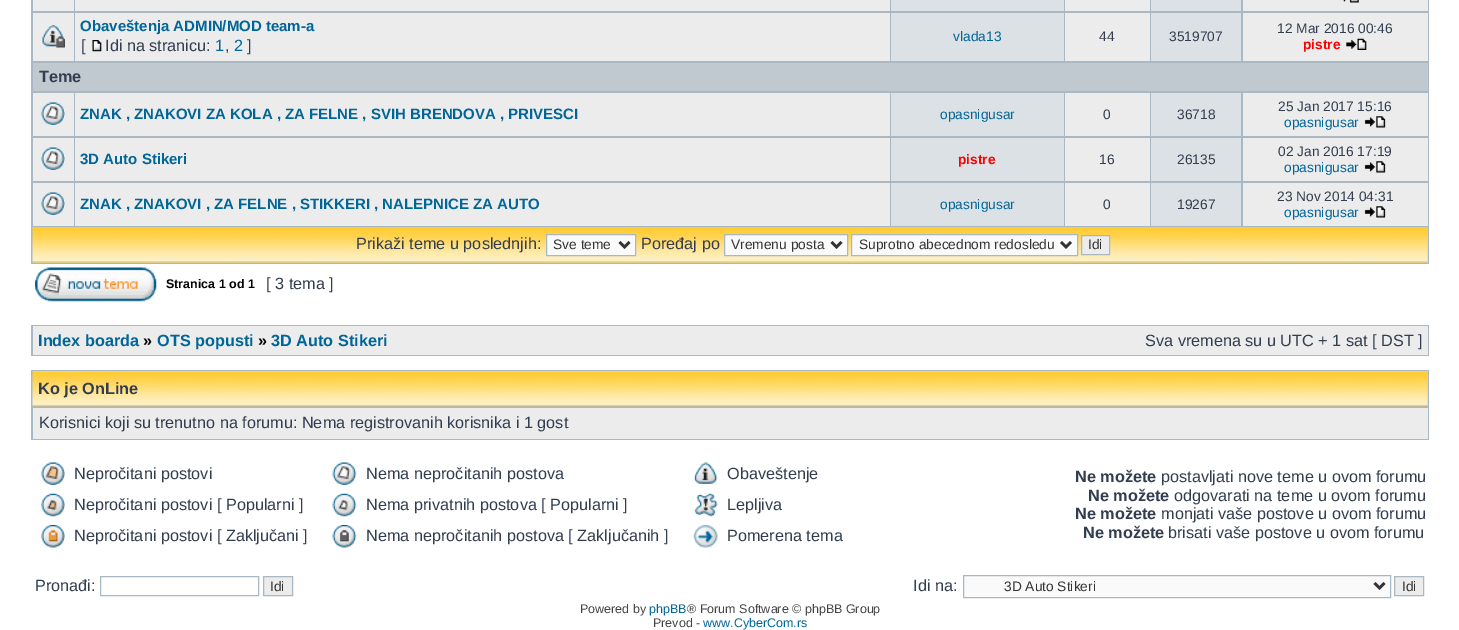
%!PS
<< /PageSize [1459 630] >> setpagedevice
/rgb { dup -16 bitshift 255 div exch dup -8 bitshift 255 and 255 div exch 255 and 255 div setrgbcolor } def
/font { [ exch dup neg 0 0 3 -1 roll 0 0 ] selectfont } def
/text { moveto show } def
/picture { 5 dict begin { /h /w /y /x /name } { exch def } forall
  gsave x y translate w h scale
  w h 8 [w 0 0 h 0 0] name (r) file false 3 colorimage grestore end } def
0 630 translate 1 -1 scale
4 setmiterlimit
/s1 { /LiberationSans-Bold 15 font 16#006597 rgb } def
/s2 { /LiberationSans-Regular 16.25 font 16#323D4F rgb } def
/s3 { /LiberationSans-Regular 16.25 font 16#006597 rgb } def
/s4 { /LiberationSans-Regular 13.75 font 16#006597 rgb } def
/s5 { /LiberationSans-Regular 13.75 font 16#323D4F rgb } def
/s6 { /LiberationSans-Bold 13.75 font 16#FF0000 rgb } def
/s7 { /LiberationSans-Bold 16.25 font 16#323D4F rgb } def
/s8 { /LiberationSans-Regular 13.75 font 16#333333 rgb } def
/s9 { /LiberationSans-Bold 12.5 font 16#000000 rgb } def
/s10 { /LiberationSans-Bold 16.25 font 16#006597 rgb } def
/s11 { /LiberationSans-Bold 16.25 font 16#000000 rgb } def
/s12 { /LiberationSans-Regular 12.5 font 16#444444 rgb } def
/s13 { /LiberationSans-Regular 12.5 font 16#006597 rgb } def
16#FFFFFF rgb
0 0 1459 630 rectfill
16#A9B8C2 rgb
31 0 1398 264 rectfill
16#ECECEC rgb
33 0 41 11 rectfill
75 0 815 11 rectfill
16#DCE1E5 rgb
891 0 173 11 rectfill
16#ECECEC rgb
1065 0 85 11 rectfill
16#DCE1E5 rgb
1151 0 90 11 rectfill
16#ECECEC rgb
1243 0 185 11 rectfill
(pic1.raw) 1343 0 16 3 picture
33 13 41 48 rectfill
(pic2.raw) 41 25 24 23 picture
75 13 815 48 rectfill
s1
(Obaveštenja ADMIN/MOD team-a) 80 31 text
s2
([) 81 51 text
(pic3.raw) 92 40 10 12 picture
(Idi na stranicu:) 105 51 text
s3
(1) 215 51 text
s2
(,) 225 51 text
s3
(2) 234 51 text
s2
(]) 247 51 text
16#DCE1E5 rgb
891 13 173 48 rectfill
s4
(vlada13) 953 41 text
16#ECECEC rgb
1065 13 85 48 rectfill
s5
(44) 1099 41 text
16#DCE1E5 rgb
1151 13 90 48 rectfill
s5
(3519707) 1169 41 text
16#ECECEC rgb
1243 13 185 48 rectfill
s5
(12 Mar 2016 00:46) 1277 33 text
s6
(pistre) 1303 49 text
(pic4.raw) 1346 38 21 12 picture
16#C0C8D0 rgb
33 63 1395 28 rectfill
s7
(Teme) 39 82 text
16#ECECEC rgb
33 93 41 43 rectfill
(pic5.raw) 41 102 24 23 picture
75 93 815 43 rectfill
s1
(ZNAK , ZNAKOVI ZA KOLA , ZA FELNE , SVIH BRENDOVA , PRIVESCI) 80 119 text
16#DCE1E5 rgb
891 93 173 43 rectfill
s4
(opasnigusar) 940 119 text
16#ECECEC rgb
1065 93 85 43 rectfill
s5
(0) 1103 119 text
16#DCE1E5 rgb
1151 93 90 43 rectfill
s5
(36718) 1177 119 text
16#ECECEC rgb
1243 93 185 43 rectfill
s5
(25 Jan 2017 15:16) 1278 111 text
s4
(opasnigusar) 1284 127 text
(pic6.raw) 1364 116 22 12 picture
16#ECECEC rgb
33 138 41 43 rectfill
(pic5.raw) 41 147 24 23 picture
75 138 815 43 rectfill
s1
(3D Auto Stikeri) 80 164 text
16#DCE1E5 rgb
891 138 173 43 rectfill
s6
(pistre) 958 164 text
16#ECECEC rgb
1065 138 85 43 rectfill
s5
(16) 1099 164 text
16#DCE1E5 rgb
1151 138 90 43 rectfill
s5
(26135) 1177 164 text
16#ECECEC rgb
1243 138 185 43 rectfill
s5
(02 Jan 2016 17:19) 1278 156 text
s4
(opasnigusar) 1284 172 text
(pic6.raw) 1364 161 22 12 picture
16#ECECEC rgb
33 183 41 43 rectfill
(pic5.raw) 41 192 24 23 picture
75 183 815 43 rectfill
s1
(ZNAK , ZNAKOVI , ZA FELNE , STIKKERI , NALEPNICE ZA AUTO) 80 209 text
16#DCE1E5 rgb
891 183 173 43 rectfill
s4
(opasnigusar) 940 209 text
16#ECECEC rgb
1065 183 85 43 rectfill
s5
(0) 1103 209 text
16#DCE1E5 rgb
1151 183 90 43 rectfill
s5
(19267) 1177 209 text
16#ECECEC rgb
1243 183 185 43 rectfill
s5
(23 Nov 2014 04:31) 1277 201 text
s4
(opasnigusar) 1284 217 text
(pic6.raw) 1364 206 22 12 picture
16#C7D0D7 rgb
33 228 1395 35 rectfill
(pic7.raw) 32 227 1396 36 picture
s2
(Prikaži teme u poslednjih:) 356 249 text
16#FAFAFA rgb
546.5 234.5 moveto 635.5 234.5 lineto 635.5 255.5 lineto 546.5 255.5 lineto closepath gsave fill grestore
16#A9B8C2 rgb
stroke
16#333333 rgb
2.5 setlinewidth
619.5 242 moveto 624.5 247 lineto 629.5 242 lineto stroke
s8
(Sve teme) 553 249 text
s2
(Poređaj po) 641 249 text
16#FAFAFA rgb
724.5 234.5 moveto 847.5 234.5 lineto 847.5 255.5 lineto 724.5 255.5 lineto closepath gsave fill grestore
16#A9B8C2 rgb
1 setlinewidth
stroke
16#333333 rgb
2.5 setlinewidth
831.5 242 moveto 836.5 247 lineto 841.5 242 lineto stroke
s8
(Vremenu posta) 731 249 text
16#FAFAFA rgb
851.5 234.5 moveto 1077.5 234.5 lineto 1077.5 255.5 lineto 851.5 255.5 lineto closepath gsave fill grestore
16#A9B8C2 rgb
1 setlinewidth
stroke
16#333333 rgb
2.5 setlinewidth
1061 242 moveto 1066 247 lineto 1071 242 lineto stroke
(Suprotno abecednom redosledu) 859 249 text
16#ECECEC rgb
1081.5 235.5 moveto 1109.5 235.5 lineto 1109.5 254.5 lineto 1081.5 254.5 lineto closepath gsave fill grestore
16#A9B8C2 rgb
1 setlinewidth
stroke
s8
(Idi) 1088 249 text
(pic8.raw) 35 267 122 35 picture
s9
(Stranica 1 od 1) 166 288 text
s2
([ 3 tema ]) 266 289 text
16#A9B8C2 rgb
31 325 1398 31 rectfill
16#ECECEC rgb
33 326 1395 29 rectfill
s10
(Index boarda) 38 346 text
s11
(») 143 346 text
s10
(OTS popusti) 157 346 text
s11
(») 258 346 text
s10
(3D Auto Stikeri) 271 346 text
s2
(Sva vremena su u UTC + 1 sat [ DST ]) 1145 346 text
16#A9B8C2 rgb
31 370 1398 70 rectfill
16#C7D0D7 rgb
33 371 1395 35 rectfill
(pic9.raw) 32 371 1396 36 picture
s7
(Ko je OnLine) 38 394 text
16#ECECEC rgb
33 408 1395 31 rectfill
s2
(Korisnici koji su trenutno na forumu: Nema registrovanih korisnika i 1 gost) 39 428 text
(pic10.raw) 41 462 24 23 picture
(Nepročitani postovi) 74 479 text
(pic11.raw) 332 462 25 23 picture
(Nema nepročitanih postova) 366 479 text
(pic12.raw) 693 462 25 22 picture
(Obaveštenje) 727 479 text
(pic13.raw) 41 493 24 24 picture
(Nepročitani postovi [ Popularni ]) 74 510 text
(pic14.raw) 332 493 25 24 picture
(Nema privatnih postova [ Popularni ]) 366 510 text
(pic15.raw) 694 493 24 24 picture
(Lepljiva) 727 510 text
(pic16.raw) 41 525 24 23 picture
(Nepročitani postovi [ Zaključani ]) 74 541 text
(pic17.raw) 332 525 25 23 picture
(Nema nepročitanih postova [ Zaključanih ]) 366 541 text
(pic18.raw) 693 525 25 23 picture
(Pomerena tema) 727 541 text
s7
(Ne možete) 1075 482 text
s2
(postavljati nove teme u ovom forumu) 1161 482 text
s7
(Ne možete) 1088 501 text
s2
(odgovarati na teme u ovom forumu) 1174 501 text
s7
(Ne možete) 1075 519 text
s2
(monjati vaše postove u ovom forumu) 1161 519 text
s7
(Ne možete) 1083 538 text
s2
(brisati vaše postove u ovom forumu) 1168 538 text
(Pronađi:) 35 591 text
16#A9B8C2 rgb
100.5 576.5 158 19 rectstroke
16#ECECEC rgb
263.5 576.5 moveto 292.5 576.5 lineto 292.5 595.5 lineto 263.5 595.5 lineto closepath gsave fill grestore
16#A9B8C2 rgb
stroke
s8
(Idi) 270 591 text
s2
(Idi na:) 913 591 text
16#FAFAFA rgb
963.5 575.5 moveto 1390.5 575.5 lineto 1390.5 597.5 lineto 963.5 597.5 lineto closepath gsave fill grestore
16#A9B8C2 rgb
stroke
16#333333 rgb
2.5 setlinewidth
1374.5 583 moveto 1379.5 588 lineto 1384.5 583 lineto stroke
s8
(3D Auto Stikeri) 1004 591 text
16#ECECEC rgb
1394.5 576.5 moveto 1423.5 576.5 lineto 1423.5 595.5 lineto 1394.5 595.5 lineto closepath gsave fill grestore
16#A9B8C2 rgb
1 setlinewidth
stroke
s8
(Idi) 1402 591 text
s12
(Powered by) 580 613 text
s13
(phpBB) 649 613 text
s12
(® Forum Software © phpBB Group) 687 613 text
(Prevod -) 653 627 text
s13
(www.CyberCom.rs) 703 627 text
showpage
